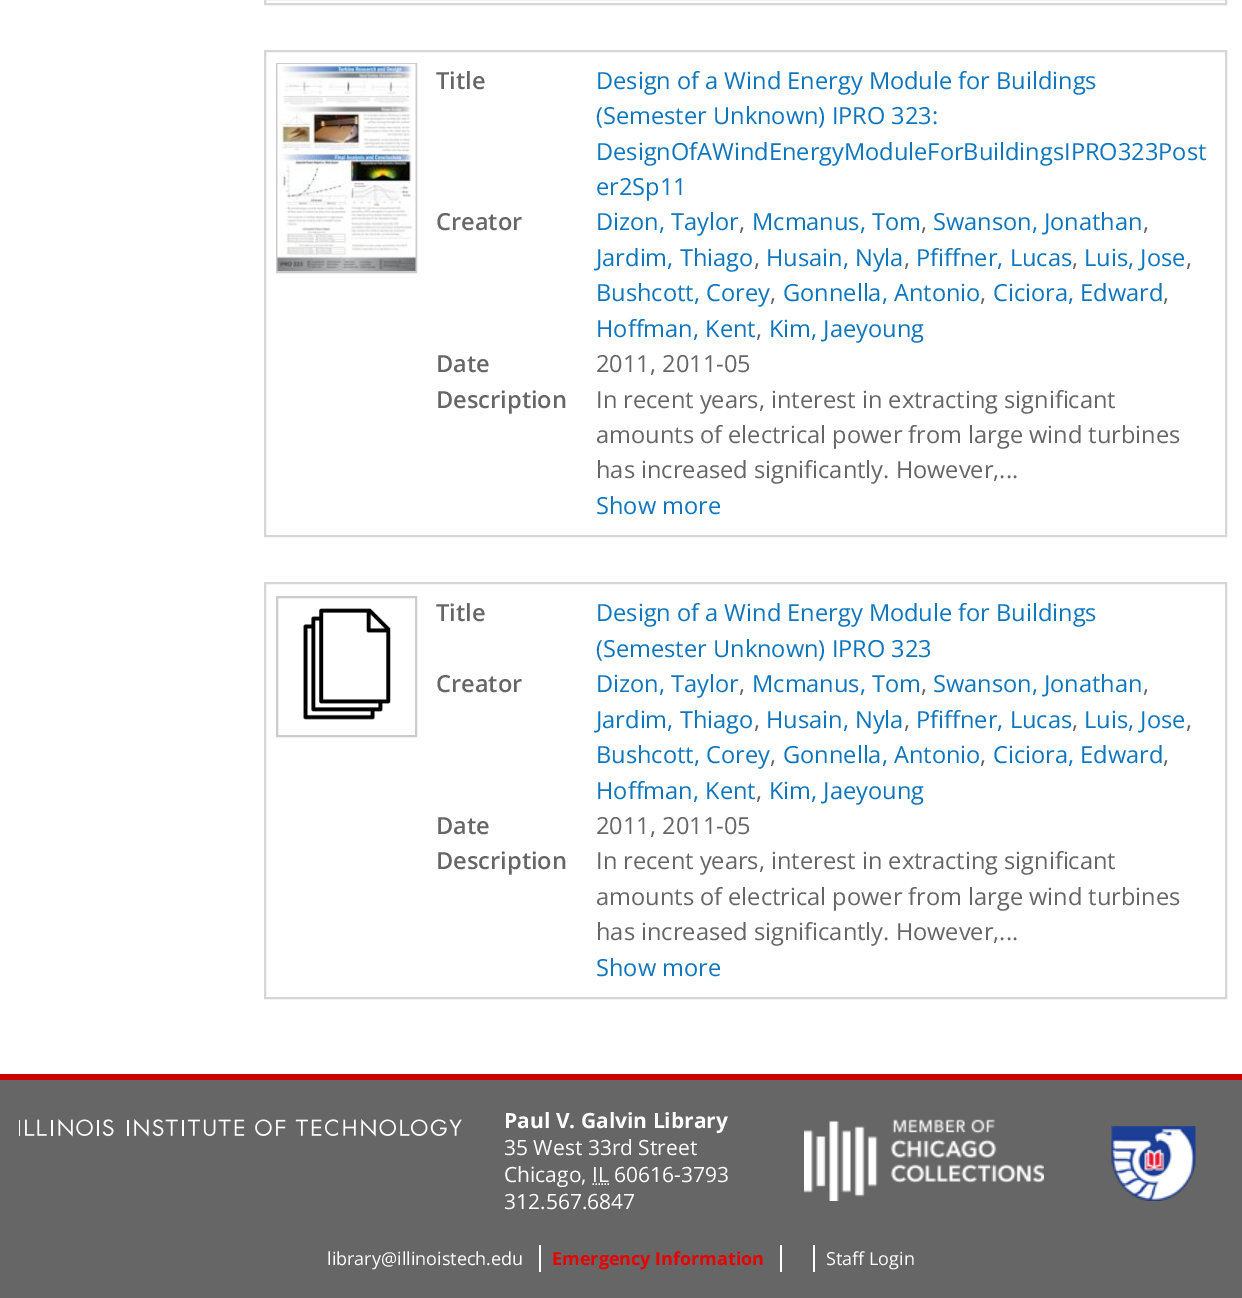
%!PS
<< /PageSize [1242 1298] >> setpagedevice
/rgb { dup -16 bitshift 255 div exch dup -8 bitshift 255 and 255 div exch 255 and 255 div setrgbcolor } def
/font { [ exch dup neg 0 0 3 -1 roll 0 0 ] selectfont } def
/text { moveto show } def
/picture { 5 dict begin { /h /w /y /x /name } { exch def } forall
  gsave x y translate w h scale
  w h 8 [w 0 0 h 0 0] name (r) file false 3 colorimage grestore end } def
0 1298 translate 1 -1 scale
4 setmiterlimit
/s1 { /OpenSans-SemiBold 23.6 font 16#666666 rgb } def
/s2 { /OpenSans-Regular 23.6 font 16#0E76BD rgb } def
/s3 { /OpenSans-Regular 23.6 font 16#666666 rgb } def
/s4 { /OpenSans-Bold 21 font 16#FFFFFF rgb } def
/s5 { /OpenSans-Regular 21 font 16#FFFFFF rgb } def
/s6 { /OpenSans-Regular 18 font 16#FFFFFF rgb } def
/s7 { /OpenSans-Bold 18 font 16#E80000 rgb } def
16#FFFFFF rgb
0 0 1242 1298 rectfill
16#D6D6D6 rgb
2 setlinewidth
265 -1 961 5 rectstroke
265 51 961 485 rectstroke
16#CCCCCC rgb
277 64 139 208 rectstroke
(pic1.raw) 277 64 139 207 picture
s1
(Title) 436 89 text
s2
(Design of a Wind Energy Module for Buildings) 596 89 text
(\(Semester Unknown\) IPRO 323:) 596 124 text
(DesignOfAWindEnergyModuleForBuildingsIPRO323Post) 596 160 text
(er2Sp11) 596 195 text
s1
(Creator) 436 230 text
s2
(Dizon, Taylor) 596 230 text
s3
(,) 739 230 text
s2
(Mcmanus, Tom) 752 230 text
s3
(,) 921 230 text
s2
(Swanson, Jonathan) 933 230 text
s3
(,) 1143 230 text
s2
(Jardim, Thiago) 596 266 text
s3
(,) 754 266 text
s2
(Husain, Nyla) 766 266 text
s3
(,) 904 266 text
s2
(Pfiffner, Lucas) 916 266 text
s3
(,) 1072 266 text
s2
(Luis, Jose) 1084 266 text
s3
(,) 1186 266 text
s2
(Bushcott, Corey) 596 301 text
s3
(,) 770 301 text
s2
(Gonnella, Antonio) 783 301 text
s3
(,) 980 301 text
s2
(Ciciora, Edward) 993 301 text
s3
(,) 1163 301 text
s2
(Hoffman, Kent) 596 337 text
s3
(,) 756 337 text
s2
(Kim, Jaeyoung) 769 337 text
s1
(Date) 436 372 text
s3
(2011, 2011-05) 596 372 text
s1
(Description) 436 408 text
s3
(In recent years, interest in extracting significant) 596 408 text
(amounts of electrical power from large wind turbines) 596 443 text
(has increased significantly. However,...) 596 478 text
s2
(Show more) 596 514 text
16#D6D6D6 rgb
265 583 961 415 rectstroke
16#CCCCCC rgb
277 597 139 139 rectstroke
(pic2.raw) 303 608 88 112 picture
s1
(Title) 436 621 text
s2
(Design of a Wind Energy Module for Buildings) 596 621 text
(\(Semester Unknown\) IPRO 323) 596 657 text
s1
(Creator) 436 692 text
s2
(Dizon, Taylor) 596 692 text
s3
(,) 739 692 text
s2
(Mcmanus, Tom) 752 692 text
s3
(,) 921 692 text
s2
(Swanson, Jonathan) 933 692 text
s3
(,) 1143 692 text
s2
(Jardim, Thiago) 596 728 text
s3
(,) 754 728 text
s2
(Husain, Nyla) 766 728 text
s3
(,) 904 728 text
s2
(Pfiffner, Lucas) 916 728 text
s3
(,) 1072 728 text
s2
(Luis, Jose) 1084 728 text
s3
(,) 1186 728 text
s2
(Bushcott, Corey) 596 763 text
s3
(,) 770 763 text
s2
(Gonnella, Antonio) 783 763 text
s3
(,) 980 763 text
s2
(Ciciora, Edward) 993 763 text
s3
(,) 1163 763 text
s2
(Hoffman, Kent) 596 799 text
s3
(,) 756 799 text
s2
(Kim, Jaeyoung) 769 799 text
s1
(Date) 436 834 text
s3
(2011, 2011-05) 596 834 text
s1
(Description) 436 869 text
s3
(In recent years, interest in extracting significant) 596 869 text
(amounts of electrical power from large wind turbines) 596 905 text
(has increased significantly. However,...) 596 940 text
s2
(Show more) 596 976 text
16#666666 rgb
0 1080 1242 218 rectfill
16#CC0000 rgb
0 1074 1242 6 rectfill
(pic3.raw) 19 1119 443 18 picture
s4
(Paul V. Galvin Library) 504 1128 text
s5
(35 West 33rd Street) 504 1155 text
(Chicago, IL 60616-3793) 504 1182 text
1.5 setlinewidth
[1.5 1.5] 0 setdash
592.5 1184 moveto 609.5 1184 lineto stroke
(312.567.6847) 504 1209 text
(pic4.raw) 804 1119 240 82 picture
(pic5.raw) 1111 1126 85 75 picture
s6
(library@illinoistech.edu) 327 1265 text
539 1245 2 27 rectfill
s7
(Emergency Information) 552 1265 text
16#FFFFFF rgb
780 1245 2 27 rectfill
813 1245 2 27 rectfill
s6
(Staff Login) 826 1265 text
showpage
